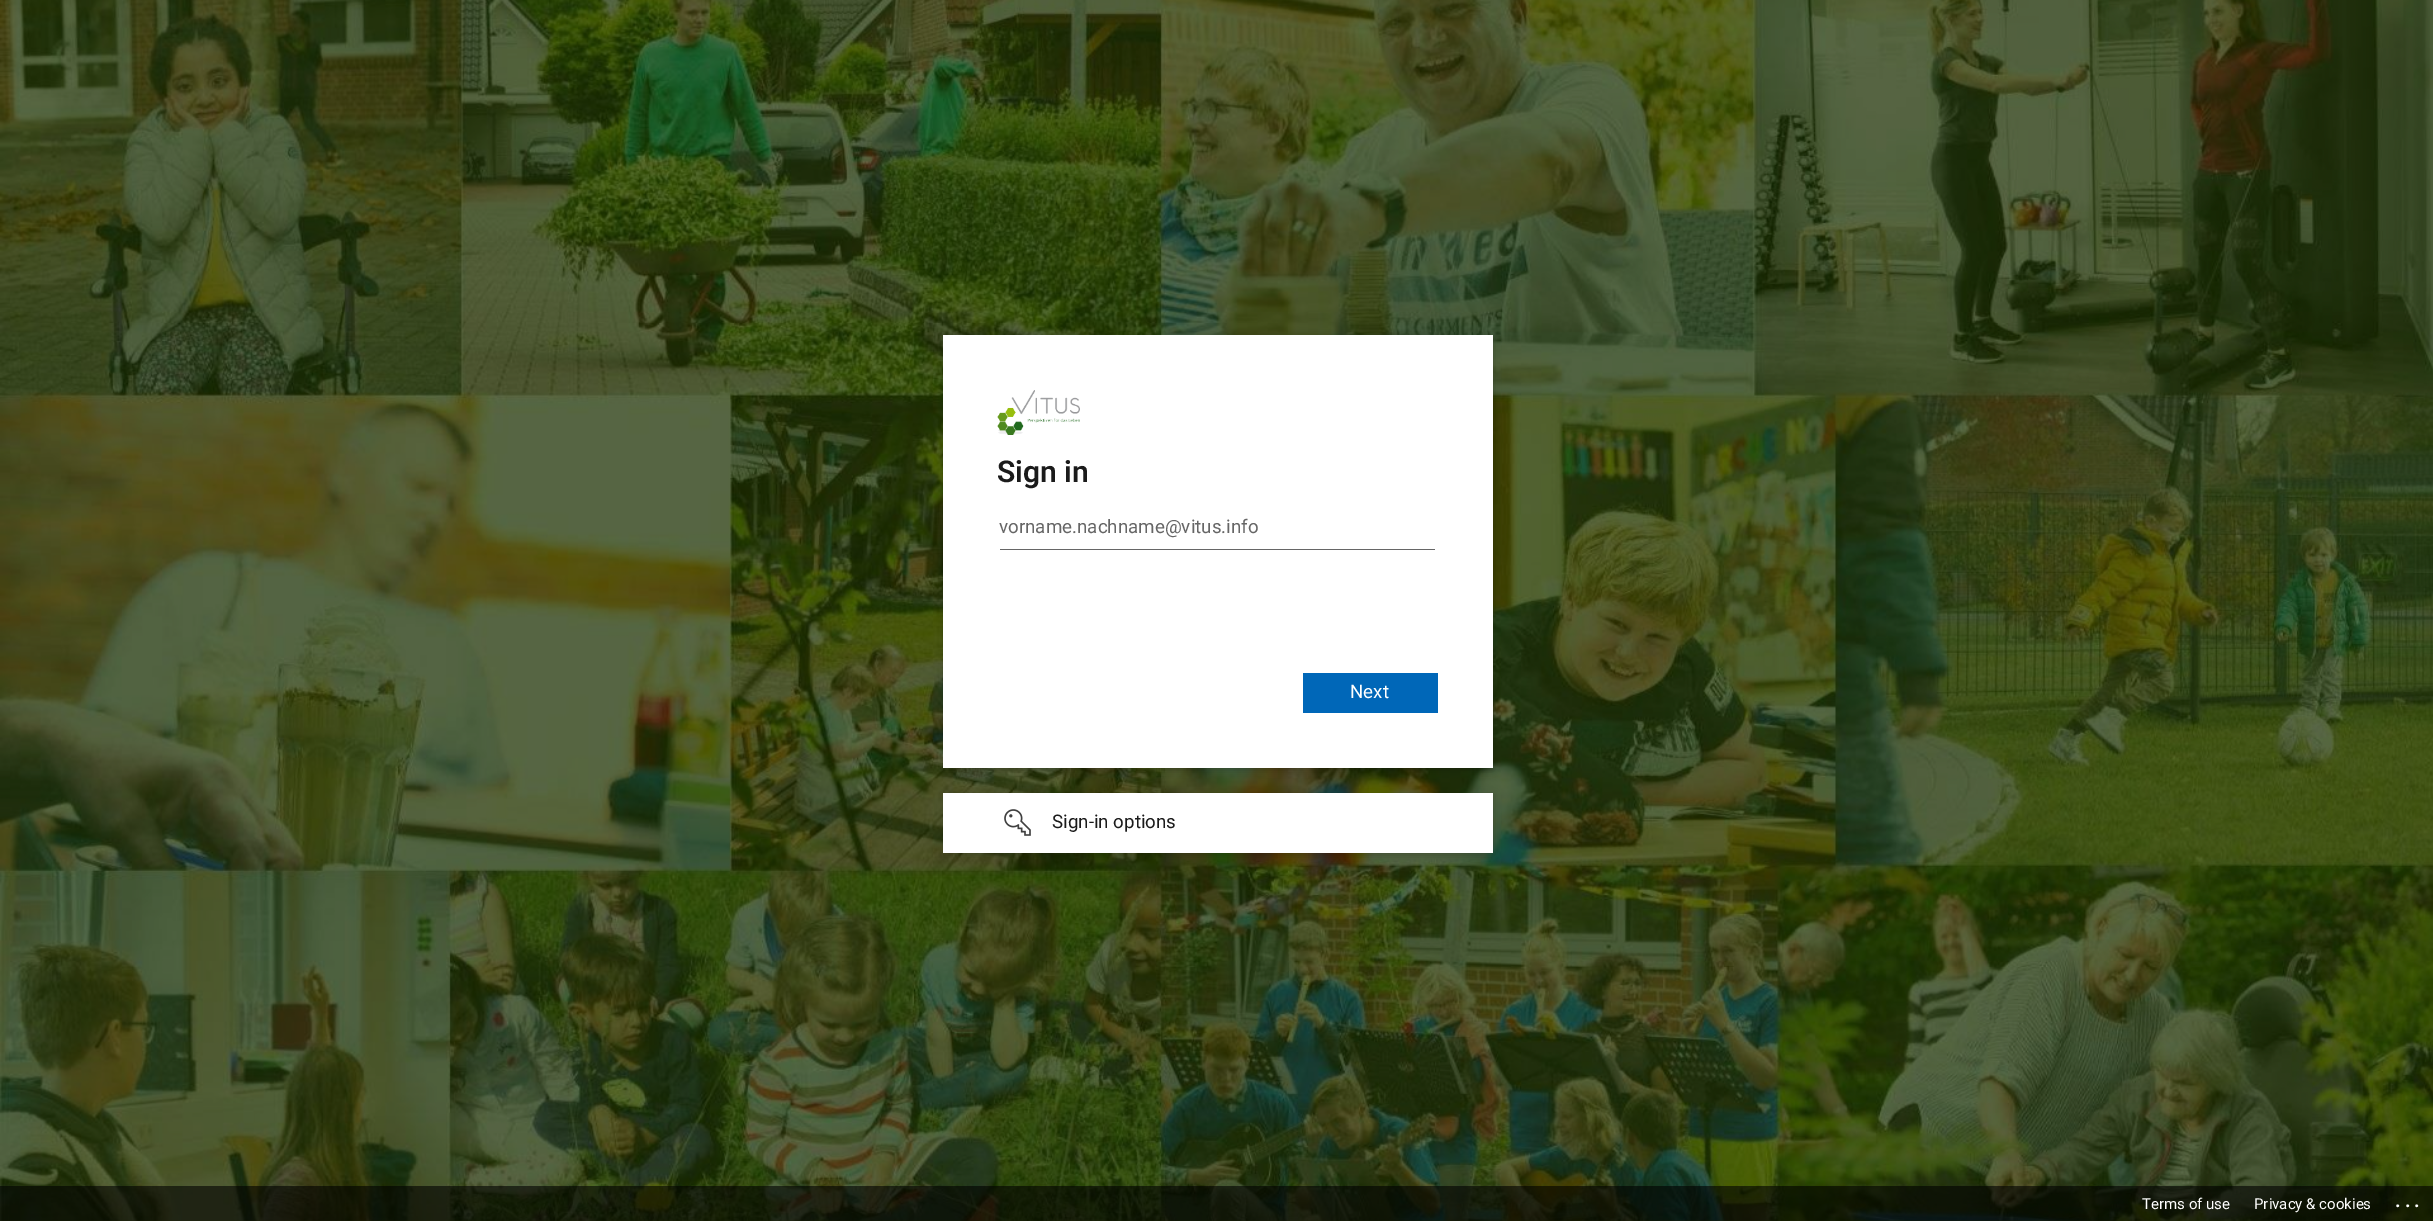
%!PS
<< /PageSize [2433 1221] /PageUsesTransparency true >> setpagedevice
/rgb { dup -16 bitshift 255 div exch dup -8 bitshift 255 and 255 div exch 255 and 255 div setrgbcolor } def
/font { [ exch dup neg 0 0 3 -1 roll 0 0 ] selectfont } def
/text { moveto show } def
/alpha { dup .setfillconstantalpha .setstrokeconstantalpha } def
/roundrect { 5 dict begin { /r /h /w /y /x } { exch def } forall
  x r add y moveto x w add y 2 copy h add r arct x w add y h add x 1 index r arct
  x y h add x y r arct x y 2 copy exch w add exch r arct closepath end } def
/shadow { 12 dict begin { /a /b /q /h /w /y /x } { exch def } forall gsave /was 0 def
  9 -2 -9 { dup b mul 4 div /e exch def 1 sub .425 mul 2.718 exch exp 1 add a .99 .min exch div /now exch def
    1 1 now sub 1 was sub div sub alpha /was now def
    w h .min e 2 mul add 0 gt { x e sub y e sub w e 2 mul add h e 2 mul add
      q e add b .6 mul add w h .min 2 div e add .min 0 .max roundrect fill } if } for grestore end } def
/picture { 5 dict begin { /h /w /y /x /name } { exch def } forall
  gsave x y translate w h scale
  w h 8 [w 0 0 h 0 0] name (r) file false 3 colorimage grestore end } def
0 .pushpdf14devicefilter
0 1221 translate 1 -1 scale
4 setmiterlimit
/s1 { /Roboto-SemiBold 30 font 16#1B1B1B rgb } def
/s2 { /Roboto-Regular 18.75 font 16#666666 rgb } def
/s3 { /Roboto-Regular 18.75 font 16#FFFFFF rgb } def
/s4 { /Roboto-Regular 18.75 font 16#1B1B1B rgb } def
/s5 { /Roboto-Regular 15 font 16#FFFFFF rgb } def
16#FFFFFF rgb
0 0 2433 1221 rectfill
(pic1.raw) 0 0 2433 1221 picture
16#000000 rgb
943 338 550 432 0 4 0.2 shadow
16#FFFFFF rgb
943 335 550 433 rectfill
(pic2.raw) 997 390 83 45 picture
s1
(Sign in) 997 482 text
16#666666 rgb
1000 549 435 1 rectfill
s2
(vorname.nachname@vitus.info) 999 533 text
16#0067B8 rgb
1303 673 135 40 rectfill
s3
(Next) 1350 698 text
16#000000 rgb
943 795 550 60 0 4 0.2 shadow
16#FFFFFF rgb
943 793 550 60 rectfill
(pic3.raw) 1004 809 27 27 picture
s4
(Sign-in options) 1052 828 text
0.6 alpha
16#000000 rgb
0 1186 2433 35 rectfill
1 alpha
s5
(Terms of use) 2142 1209 text
(Privacy & cookies) 2254 1209 text
/Roboto-SemiBold 20 font
2395 1207 moveto 4 0 (...) ashow
.poppdf14devicefilter showpage
